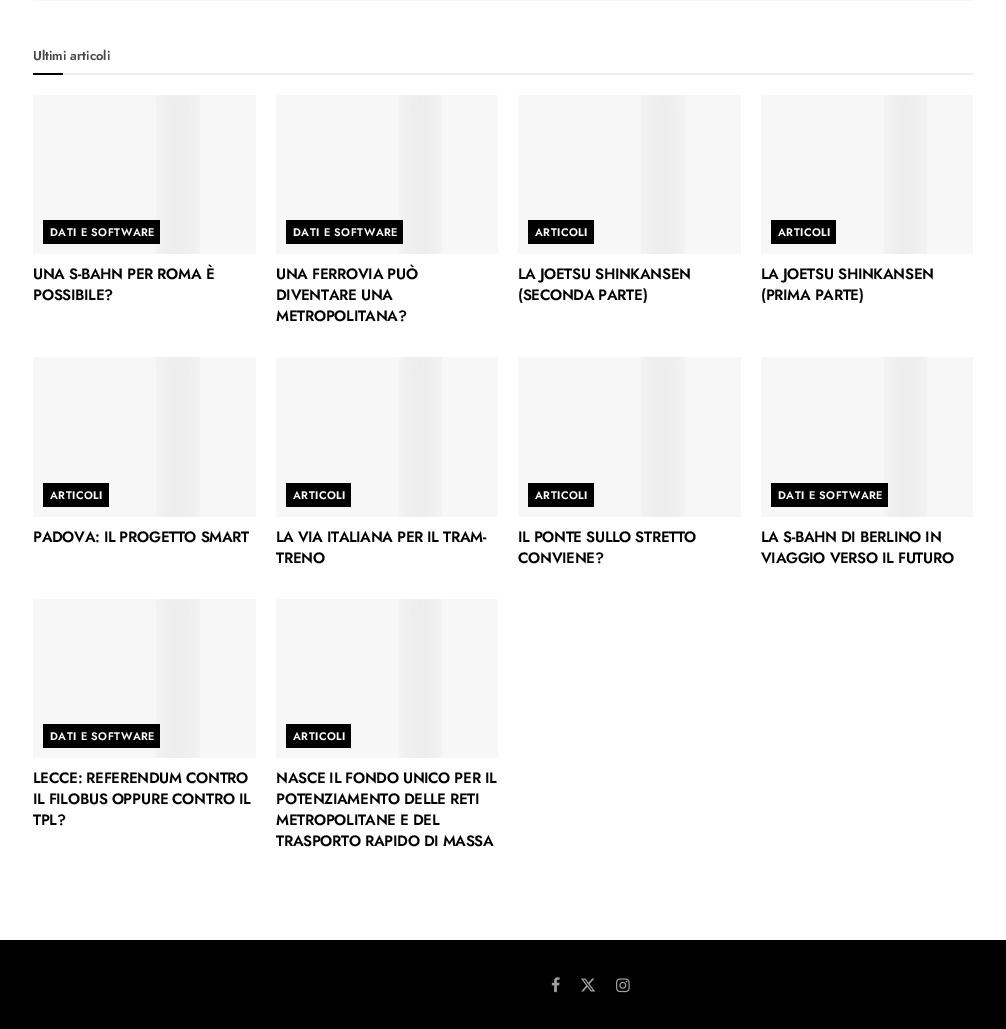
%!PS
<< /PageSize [1006 1029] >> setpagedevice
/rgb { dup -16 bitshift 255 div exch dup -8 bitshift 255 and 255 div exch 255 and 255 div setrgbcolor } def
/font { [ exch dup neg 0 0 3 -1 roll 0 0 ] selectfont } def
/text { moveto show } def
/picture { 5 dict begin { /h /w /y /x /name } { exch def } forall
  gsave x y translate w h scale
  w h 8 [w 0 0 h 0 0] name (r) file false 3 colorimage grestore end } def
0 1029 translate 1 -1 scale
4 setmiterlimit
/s1 { /Jost-SemiBold 13 font 16#494949 rgb } def
16#FFFFFF rgb
0 0 1006 1029 rectfill
16#F7F7F7 rgb
33 0 940 1 rectfill
16#EEEEEE rgb
63 73 910 2 rectfill
s1
(Ultimi articoli) 33 60 text
16#000000 rgb
33 73 30 2 rectfill
16#F7F7F7 rgb
33 95 223 159 rectfill
(pic1.raw) 156 95 44 159 picture
16#000000 rgb
43 220 117 24 rectfill
/Jost-SemiBold 11 font
16#FFFFFF rgb
50 236 moveto 0.5 0 (DATI E SOFTWARE) ashow
/Jost-SemiBold 15 font
16#000000 rgb
33 279 moveto -0.3 0 (UNA S-BAHN PER ROMA È) ashow
33 300 moveto -0.3 0 (POSSIBILE?) ashow
16#F7F7F7 rgb
276 95 222 159 rectfill
(pic2.raw) 399 95 43 159 picture
16#000000 rgb
286 220 117 24 rectfill
/Jost-SemiBold 11 font
16#FFFFFF rgb
293 236 moveto 0.5 0 (DATI E SOFTWARE) ashow
/Jost-SemiBold 15 font
16#000000 rgb
276 279 moveto -0.3 0 (UNA FERROVIA PUÒ) ashow
276 300 moveto -0.3 0 (DIVENTARE UNA) ashow
276 321 moveto -0.3 0 (METROPOLITANA?) ashow
16#F7F7F7 rgb
518 95 223 159 rectfill
(pic1.raw) 641 95 44 159 picture
16#000000 rgb
528 220 66 24 rectfill
/Jost-SemiBold 11 font
16#FFFFFF rgb
535 236 moveto 0.5 0 (ARTICOLI) ashow
/Jost-SemiBold 15 font
16#000000 rgb
518 279 moveto -0.3 0 (LA JOETSU SHINKANSEN) ashow
518 300 moveto -0.3 0 (\(SECONDA PARTE\)) ashow
16#F7F7F7 rgb
761 95 212 159 rectfill
(pic2.raw) 884 95 43 159 picture
16#000000 rgb
771 220 65 24 rectfill
/Jost-SemiBold 11 font
16#FFFFFF rgb
778 236 moveto 0.5 0 (ARTICOLI) ashow
/Jost-SemiBold 15 font
16#000000 rgb
761 279 moveto -0.3 0 (LA JOETSU SHINKANSEN) ashow
761 300 moveto -0.3 0 (\(PRIMA PARTE\)) ashow
16#F7F7F7 rgb
33 357 223 160 rectfill
(pic3.raw) 156 357 44 160 picture
16#000000 rgb
43 483 66 24 rectfill
/Jost-SemiBold 11 font
16#FFFFFF rgb
50 499 moveto 0.5 0 (ARTICOLI) ashow
/Jost-SemiBold 15 font
16#000000 rgb
33 542 moveto -0.3 0 (PADOVA: IL PROGETTO SMART) ashow
16#F7F7F7 rgb
276 357 222 160 rectfill
(pic4.raw) 399 357 43 160 picture
16#000000 rgb
286 483 65 24 rectfill
/Jost-SemiBold 11 font
16#FFFFFF rgb
293 499 moveto 0.5 0 (ARTICOLI) ashow
/Jost-SemiBold 15 font
16#000000 rgb
276 542 moveto -0.3 0 (LA VIA ITALIANA PER IL TRAM-) ashow
276 563 moveto -0.3 0 (TRENO) ashow
16#F7F7F7 rgb
518 357 223 160 rectfill
(pic3.raw) 641 357 44 160 picture
16#000000 rgb
528 483 66 24 rectfill
/Jost-SemiBold 11 font
16#FFFFFF rgb
535 499 moveto 0.5 0 (ARTICOLI) ashow
/Jost-SemiBold 15 font
16#000000 rgb
518 542 moveto -0.3 0 (IL PONTE SULLO STRETTO) ashow
518 563 moveto -0.3 0 (CONVIENE?) ashow
16#F7F7F7 rgb
761 357 212 160 rectfill
(pic4.raw) 884 357 43 160 picture
16#000000 rgb
771 483 117 24 rectfill
/Jost-SemiBold 11 font
16#FFFFFF rgb
778 499 moveto 0.5 0 (DATI E SOFTWARE) ashow
/Jost-SemiBold 15 font
16#000000 rgb
761 542 moveto -0.3 0 (LA S-BAHN DI BERLINO IN) ashow
761 563 moveto -0.3 0 (VIAGGIO VERSO IL FUTURO) ashow
16#F7F7F7 rgb
33 599 223 159 rectfill
(pic1.raw) 156 599 44 159 picture
16#000000 rgb
43 724 117 24 rectfill
/Jost-SemiBold 11 font
16#FFFFFF rgb
50 740 moveto 0.5 0 (DATI E SOFTWARE) ashow
/Jost-SemiBold 15 font
16#000000 rgb
33 783 moveto -0.3 0 (LECCE: REFERENDUM CONTRO) ashow
33 804 moveto -0.3 0 (IL FILOBUS OPPURE CONTRO IL) ashow
33 825 moveto -0.3 0 (TPL?) ashow
16#F7F7F7 rgb
276 599 222 159 rectfill
(pic2.raw) 399 599 43 159 picture
16#000000 rgb
286 724 65 24 rectfill
/Jost-SemiBold 11 font
16#FFFFFF rgb
293 740 moveto 0.5 0 (ARTICOLI) ashow
/Jost-SemiBold 15 font
16#000000 rgb
276 783 moveto -0.3 0 (NASCE IL FONDO UNICO PER IL) ashow
276 804 moveto -0.3 0 (POTENZIAMENTO DELLE RETI) ashow
276 825 moveto -0.3 0 (METROPOLITANE E DEL) ashow
276 846 moveto -0.3 0 (TRASPORTO RAPIDO DI MASSA) ashow
0 940 1006 89 rectfill
(pic5.raw) 551 977 9 16 picture
(pic6.raw) 581 978 15 14 picture
(pic7.raw) 616 978 14 15 picture
showpage
